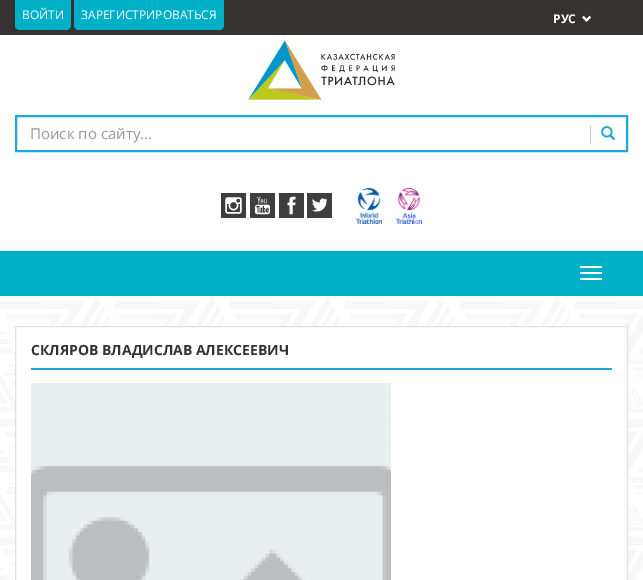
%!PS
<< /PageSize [643 580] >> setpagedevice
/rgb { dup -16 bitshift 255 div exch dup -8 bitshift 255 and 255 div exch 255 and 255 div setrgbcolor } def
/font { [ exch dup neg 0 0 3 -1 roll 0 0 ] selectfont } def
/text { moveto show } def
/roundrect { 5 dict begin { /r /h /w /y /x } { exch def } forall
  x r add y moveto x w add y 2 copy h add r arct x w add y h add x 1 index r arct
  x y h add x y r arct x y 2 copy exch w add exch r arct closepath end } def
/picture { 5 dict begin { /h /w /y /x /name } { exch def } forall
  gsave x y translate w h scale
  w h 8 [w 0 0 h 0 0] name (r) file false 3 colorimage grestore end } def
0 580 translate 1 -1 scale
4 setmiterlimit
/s1 { /OpenSans-Regular 12 font 16#FFFFFF rgb } def
/s2 { /OpenSans-Bold 12 font 16#FFFFFF rgb } def
/s3 { /OpenSans-Regular 15 font 16#999999 rgb } def
/s4 { /OpenSans-Bold 14 font 16#363231 rgb } def
16#FFFFFF rgb
0 0 643 580 rectfill
16#363231 rgb
0 0 643 35 rectfill
16#00B0C7 rgb
15 -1 moveto 71 -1 lineto 71 25 lineto 71 28 69 30 66 30 curveto 20 30 lineto 17 30 15 28 15 25 curveto closepath fill
s1
(ВОЙТИ) 22 19 text
16#00B0C7 rgb
74 -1 moveto 224 -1 lineto 224 25 lineto 224 28 222 30 219 30 curveto 79 30 lineto 76 30 74 28 74 25 curveto closepath fill
s1
(ЗАРЕГИСТРИРОВАТЬСЯ) 81 19 text
s2
(РУС) 553 23 text
(pic1.raw) 582 15 10 7 picture
(pic2.raw) 248 40 147 60 picture
16#1DA8DA rgb
2 setlinewidth
16 116 611 35 rectstroke
s3
(Поиск по сайту...) 30 139 text
16#CCCCCC rgb
590 125 1 19 rectfill
(pic3.raw) 601 126 15 14 picture
(pic4.raw) 221 193 25 25 picture
(pic5.raw) 250 193 25 25 picture
(pic6.raw) 279 193 25 25 picture
(pic7.raw) 307 193 25 25 picture
(pic8.raw) 356 188 26 36 picture
(pic9.raw) 396 188 26 36 picture
16#00B0C7 rgb
0 251 643 45 rectfill
16#FFFFFF rgb
580 266 22 2 1 roundrect fill
580 272 22 2 1 roundrect fill
580 278 22 2 1 roundrect fill
(pic10.raw) 0 296 643 284 picture
15.5 326.5 moveto 627.5 326.5 lineto 627.5 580.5 lineto 15.5 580.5 lineto closepath gsave fill grestore
16#DDE2E6 rgb
1 setlinewidth
stroke
s4
(СКЛЯРОВ ВЛАДИСЛАВ АЛЕКСЕЕВИЧ) 31 355 text
16#1DA8DA rgb
31 368 581 2 rectfill
(pic11.raw) 31 383 360 197 picture
showpage
